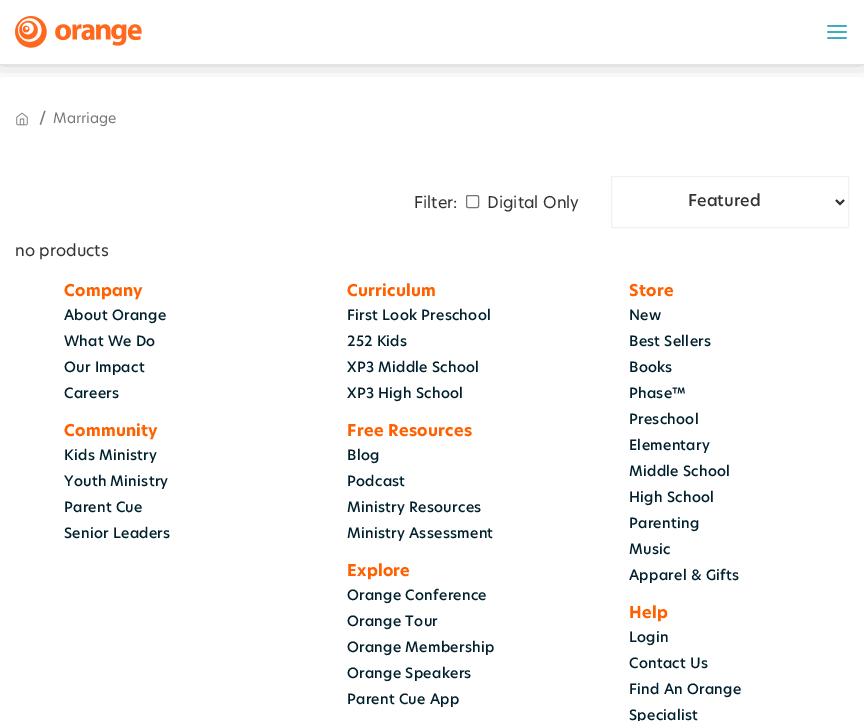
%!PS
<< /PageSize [864 721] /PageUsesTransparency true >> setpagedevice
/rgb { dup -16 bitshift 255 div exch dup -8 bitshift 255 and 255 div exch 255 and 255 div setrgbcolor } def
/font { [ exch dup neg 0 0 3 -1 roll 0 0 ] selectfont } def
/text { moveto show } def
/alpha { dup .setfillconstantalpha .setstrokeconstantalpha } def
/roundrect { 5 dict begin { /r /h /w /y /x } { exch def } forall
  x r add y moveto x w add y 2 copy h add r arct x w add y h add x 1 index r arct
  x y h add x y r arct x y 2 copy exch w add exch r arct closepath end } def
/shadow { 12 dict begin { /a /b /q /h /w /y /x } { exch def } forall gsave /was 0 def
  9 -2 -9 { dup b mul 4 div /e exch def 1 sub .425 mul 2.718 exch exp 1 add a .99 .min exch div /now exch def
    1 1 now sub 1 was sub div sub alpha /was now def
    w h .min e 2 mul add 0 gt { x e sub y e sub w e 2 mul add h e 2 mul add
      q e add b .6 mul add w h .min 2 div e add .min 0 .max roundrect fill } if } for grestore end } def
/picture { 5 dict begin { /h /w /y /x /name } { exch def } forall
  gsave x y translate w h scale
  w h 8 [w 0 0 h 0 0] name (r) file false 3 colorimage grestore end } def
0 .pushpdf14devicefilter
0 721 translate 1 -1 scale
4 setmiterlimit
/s1 { /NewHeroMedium-Medium 14 font 16#777777 rgb } def
/s2 { /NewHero-Regular 14 font 16#777777 rgb } def
/s3 { /NewHero-Regular 16 font 16#333333 rgb } def
/s4 { /NewHeroMedium-Medium 16 font 16#333333 rgb } def
16#FFFFFF rgb
0 0 864 721 rectfill
gsave
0 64 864 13 rectclip
16#000000 rgb
0 -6 864 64 0 12 0.35 shadow
grestore
(pic1.raw) 15 16 127 32 picture
(pic2.raw) 827 25 20 14 picture
(pic3.raw) 16 112 12 14 picture
s1
(/) 39 123 text
s2
(Marriage) 53 123 text
s3
(Filter:) 414 208 text
16#767676 rgb
466.5 195.5 12 12 1.5 roundrect stroke
s3
(Digital Only) 487 208 text
16#F0F0F0 rgb
611.5 176.5 237 51 rectstroke
16#333333 rgb
2 setlinewidth
836 200 moveto 840 204 lineto 844 200 lineto stroke
s4
(Featured) 688 206 text
s3
(no products) 15 256 text
/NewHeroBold-Bold 16 font
16#FF6000 rgb
64 296 moveto 0.25 0 (Company) ashow
/NewHeroMedium-Medium 14 font
16#00202D rgb
64 320 moveto 0.25 0 (About Orange) ashow
64 346 moveto 0.25 0 (What We Do) ashow
64 372 moveto 0.25 0 (Our Impact) ashow
64 398 moveto 0.25 0 (Careers) ashow
/NewHeroBold-Bold 16 font
16#FF6000 rgb
64 436 moveto 0.25 0 (Community) ashow
/NewHeroMedium-Medium 14 font
16#00202D rgb
64 460 moveto 0.25 0 (Kids Ministry) ashow
64 486 moveto 0.25 0 (Youth Ministry) ashow
64 512 moveto 0.25 0 (Parent Cue) ashow
64 538 moveto 0.25 0 (Senior Leaders) ashow
/NewHeroBold-Bold 16 font
16#FF6000 rgb
347 296 moveto 0.25 0 (Curriculum) ashow
/NewHeroMedium-Medium 14 font
16#00202D rgb
347 320 moveto 0.25 0 (First Look Preschool) ashow
347 346 moveto 0.25 0 (252 Kids) ashow
347 372 moveto 0.25 0 (XP3 Middle School) ashow
347 398 moveto 0.25 0 (XP3 High School) ashow
/NewHeroBold-Bold 16 font
16#FF6000 rgb
347 436 moveto 0.25 0 (Free Resources) ashow
/NewHeroMedium-Medium 14 font
16#00202D rgb
347 460 moveto 0.25 0 (Blog) ashow
347 486 moveto 0.25 0 (Podcast) ashow
347 512 moveto 0.25 0 (Ministry Resources) ashow
347 538 moveto 0.25 0 (Ministry Assessment) ashow
/NewHeroBold-Bold 16 font
16#FF6000 rgb
629 296 moveto 0.25 0 (Store) ashow
/NewHeroMedium-Medium 14 font
16#00202D rgb
629 320 moveto 0.25 0 (New) ashow
629 346 moveto 0.25 0 (Best Sellers) ashow
629 372 moveto 0.25 0 (Books) ashow
629 398 moveto 0.25 0 (Phase™) ashow
629 424 moveto 0.25 0 (Preschool) ashow
629 450 moveto 0.25 0 (Elementary) ashow
629 476 moveto 0.25 0 (Middle School) ashow
629 502 moveto 0.25 0 (High School) ashow
629 528 moveto 0.25 0 (Parenting) ashow
629 554 moveto 0.25 0 (Music) ashow
629 580 moveto 0.25 0 (Apparel & Gifts) ashow
/NewHeroBold-Bold 16 font
16#FF6000 rgb
347 576 moveto 0.25 0 (Explore) ashow
/NewHeroMedium-Medium 14 font
16#00202D rgb
347 600 moveto 0.25 0 (Orange Conference) ashow
347 626 moveto 0.25 0 (Orange Tour) ashow
347 652 moveto 0.25 0 (Orange Membership) ashow
347 678 moveto 0.25 0 (Orange Speakers) ashow
347 704 moveto 0.25 0 (Parent Cue App) ashow
/NewHeroBold-Bold 16 font
16#FF6000 rgb
629 618 moveto 0.25 0 (Help) ashow
/NewHeroMedium-Medium 14 font
16#00202D rgb
629 642 moveto 0.25 0 (Login) ashow
629 668 moveto 0.25 0 (Contact Us) ashow
629 694 moveto 0.25 0 (Find An Orange) ashow
629 720 moveto 0.25 0 (Specialist) ashow
.poppdf14devicefilter showpage
